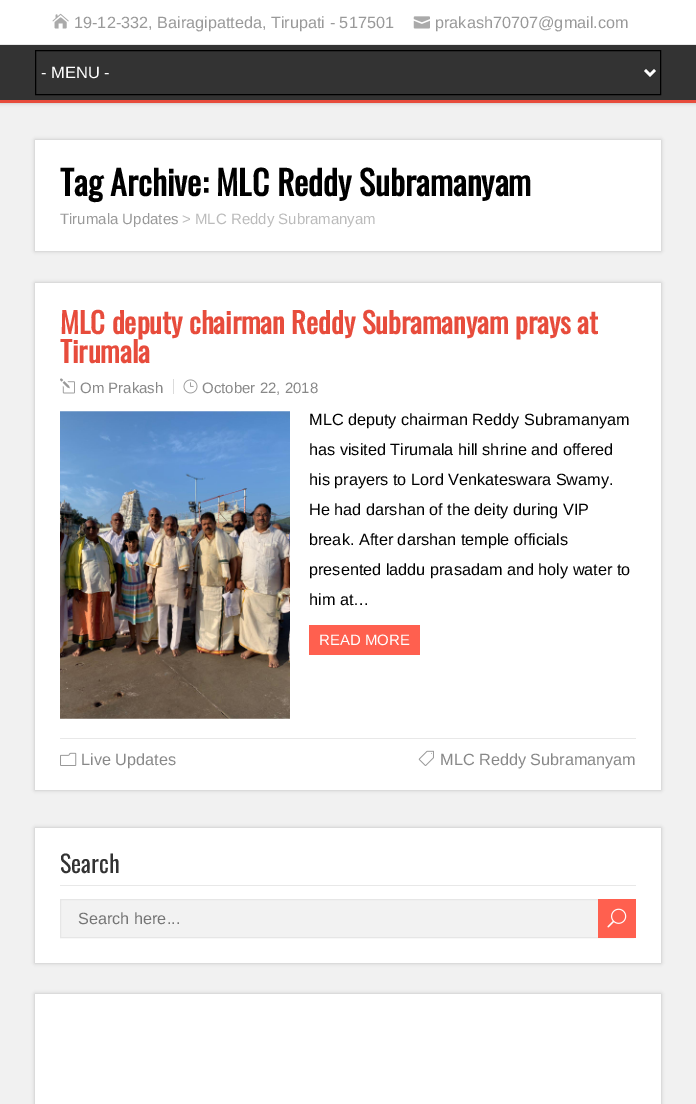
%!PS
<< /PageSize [696 1104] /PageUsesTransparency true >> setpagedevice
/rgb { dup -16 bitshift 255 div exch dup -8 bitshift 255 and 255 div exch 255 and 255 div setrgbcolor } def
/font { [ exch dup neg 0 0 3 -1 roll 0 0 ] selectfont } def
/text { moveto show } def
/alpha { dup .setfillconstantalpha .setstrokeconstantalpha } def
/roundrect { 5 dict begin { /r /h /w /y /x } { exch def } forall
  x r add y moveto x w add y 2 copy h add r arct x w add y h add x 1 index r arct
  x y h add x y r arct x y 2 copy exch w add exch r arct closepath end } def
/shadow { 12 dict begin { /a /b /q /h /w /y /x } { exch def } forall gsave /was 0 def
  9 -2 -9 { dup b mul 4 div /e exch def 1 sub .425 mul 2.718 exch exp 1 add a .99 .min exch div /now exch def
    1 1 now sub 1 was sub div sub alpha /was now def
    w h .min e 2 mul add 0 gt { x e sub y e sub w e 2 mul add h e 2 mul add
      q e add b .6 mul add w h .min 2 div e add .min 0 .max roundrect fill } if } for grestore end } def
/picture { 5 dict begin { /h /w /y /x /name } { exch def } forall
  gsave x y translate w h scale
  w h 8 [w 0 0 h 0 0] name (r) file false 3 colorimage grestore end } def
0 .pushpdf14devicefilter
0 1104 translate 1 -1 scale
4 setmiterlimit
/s1 { /LiberationSans-Regular 16.25 font 16#999999 rgb } def
/s2 { /LiberationSans-Regular 16.5 font 16#FFFFFF rgb } def
/s3 { /Oswald-Bold 33.75 font 16#000000 rgb } def
/s4 { /LiberationSans-Regular 15 font 16#999999 rgb } def
/s5 { /LiberationSans-Regular 15 font 16#BBBBBB rgb } def
/s6 { /Oswald-Bold 28.75 font 16#E74C3C rgb } def
/s7 { /LiberationSans-Regular 15 font 16#888888 rgb } def
/s8 { /LiberationSans-Regular 16.25 font 16#000000 rgb } def
/s9 { /LiberationSans-Regular 15 font 16#FFFFFF rgb } def
/s10 { /LiberationSans-Regular 16.25 font 16#888888 rgb } def
/s11 { /Oswald-Regular 24 font 16#333333 rgb } def
/s12 { /LiberationSans-Regular 16.25 font 16#757575 rgb } def
16#F1F1F1 rgb
0 0 696 1104 rectfill
16#BBBBBB rgb
0 0 696 103 0 2 1 shadow
16#FFFFFF rgb
0 0 696 44 rectfill
16#E8E8E8 rgb
0 44 696 1 rectfill
(pic1.raw) 52 13 17 16 picture
s1
(19-12-332, Bairagipatteda, Tirupati - 517501) 74 28 text
(pic2.raw) 413 16 17 13 picture
(prakash70707@gmail.com) 435 28 text
16#333333 rgb
0 45 696 55 rectfill
16#E74C3C rgb
0 100 696 3 rectfill
16#000000 rgb
35.5 50.5 625 44 rectstroke
16#FFFFFF rgb
2.5 setlinewidth
645 70 moveto 650 75 lineto 655 70 lineto stroke
s2
(- MENU -) 41 78 text
16#BBBBBB rgb
35 140 626 111 0 2 1 shadow
16#FFFFFF rgb
35 140 626 111 rectfill
s3
(Tag Archive: MLC Reddy Subramanyam) 60 196 text
s4
(Tirumala Updates) 60 224 text
s5
(> MLC Reddy Subramanyam) 182 224 text
35 283 626 507 0 2 1 shadow
16#FFFFFF rgb
35 283 626 507 rectfill
s6
(MLC deputy chairman Reddy Subramanyam prays at) 60 334 text
(Tirumala) 60 363 text
(pic3.raw) 60 378 15 16 picture
s7
(Om Prakash) 80 393 text
(pic4.raw) 183 379 15 15 picture
(October 22, 2018) 202 393 text
16#DBDBDB rgb
173 379 1 15 rectfill
(pic5.raw) 60 411 230 308 picture
s8
(MLC deputy chairman Reddy Subramanyam) 309 425 text
(has visited Tirumala hill shrine and offered) 309 455 text
(his prayers to Lord Venkateswara Swamy.) 309 485 text
(He had darshan of the deity during VIP) 309 515 text
(break. After darshan temple officials) 309 545 text
(presented laddu prasadam and holy water to) 309 575 text
(him at…) 309 605 text
16#FF604F rgb
309 625 111 30 rectfill
s9
(READ MORE) 319 645 text
16#E8E8E8 rgb
60 738 576 1 rectfill
(pic6.raw) 60 752 17 14 picture
s10
(Live Updates) 81 765 text
(pic7.raw) 418 750 16 16 picture
(MLC Reddy Subramanyam) 440 765 text
16#BBBBBB rgb
35 828 626 135 0 2 1 shadow
16#FFFFFF rgb
35 828 626 135 rectfill
16#E8E8E8 rgb
60 885 576 1 rectfill
s11
(Search) 60 873 text
16#F2F2F2 rgb
61 900 537 37 rectfill
16#E6E6E6 rgb
1 setlinewidth
60.5 899.5 573 38 rectstroke
s12
(Search here...) 78 924 text
16#FF604F rgb
598 899 38 39 rectfill
(pic8.raw) 607 908 20 20 picture
16#BBBBBB rgb
35 994 626 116 0 2 1 shadow
16#FFFFFF rgb
35 994 626 110 rectfill
.poppdf14devicefilter showpage
